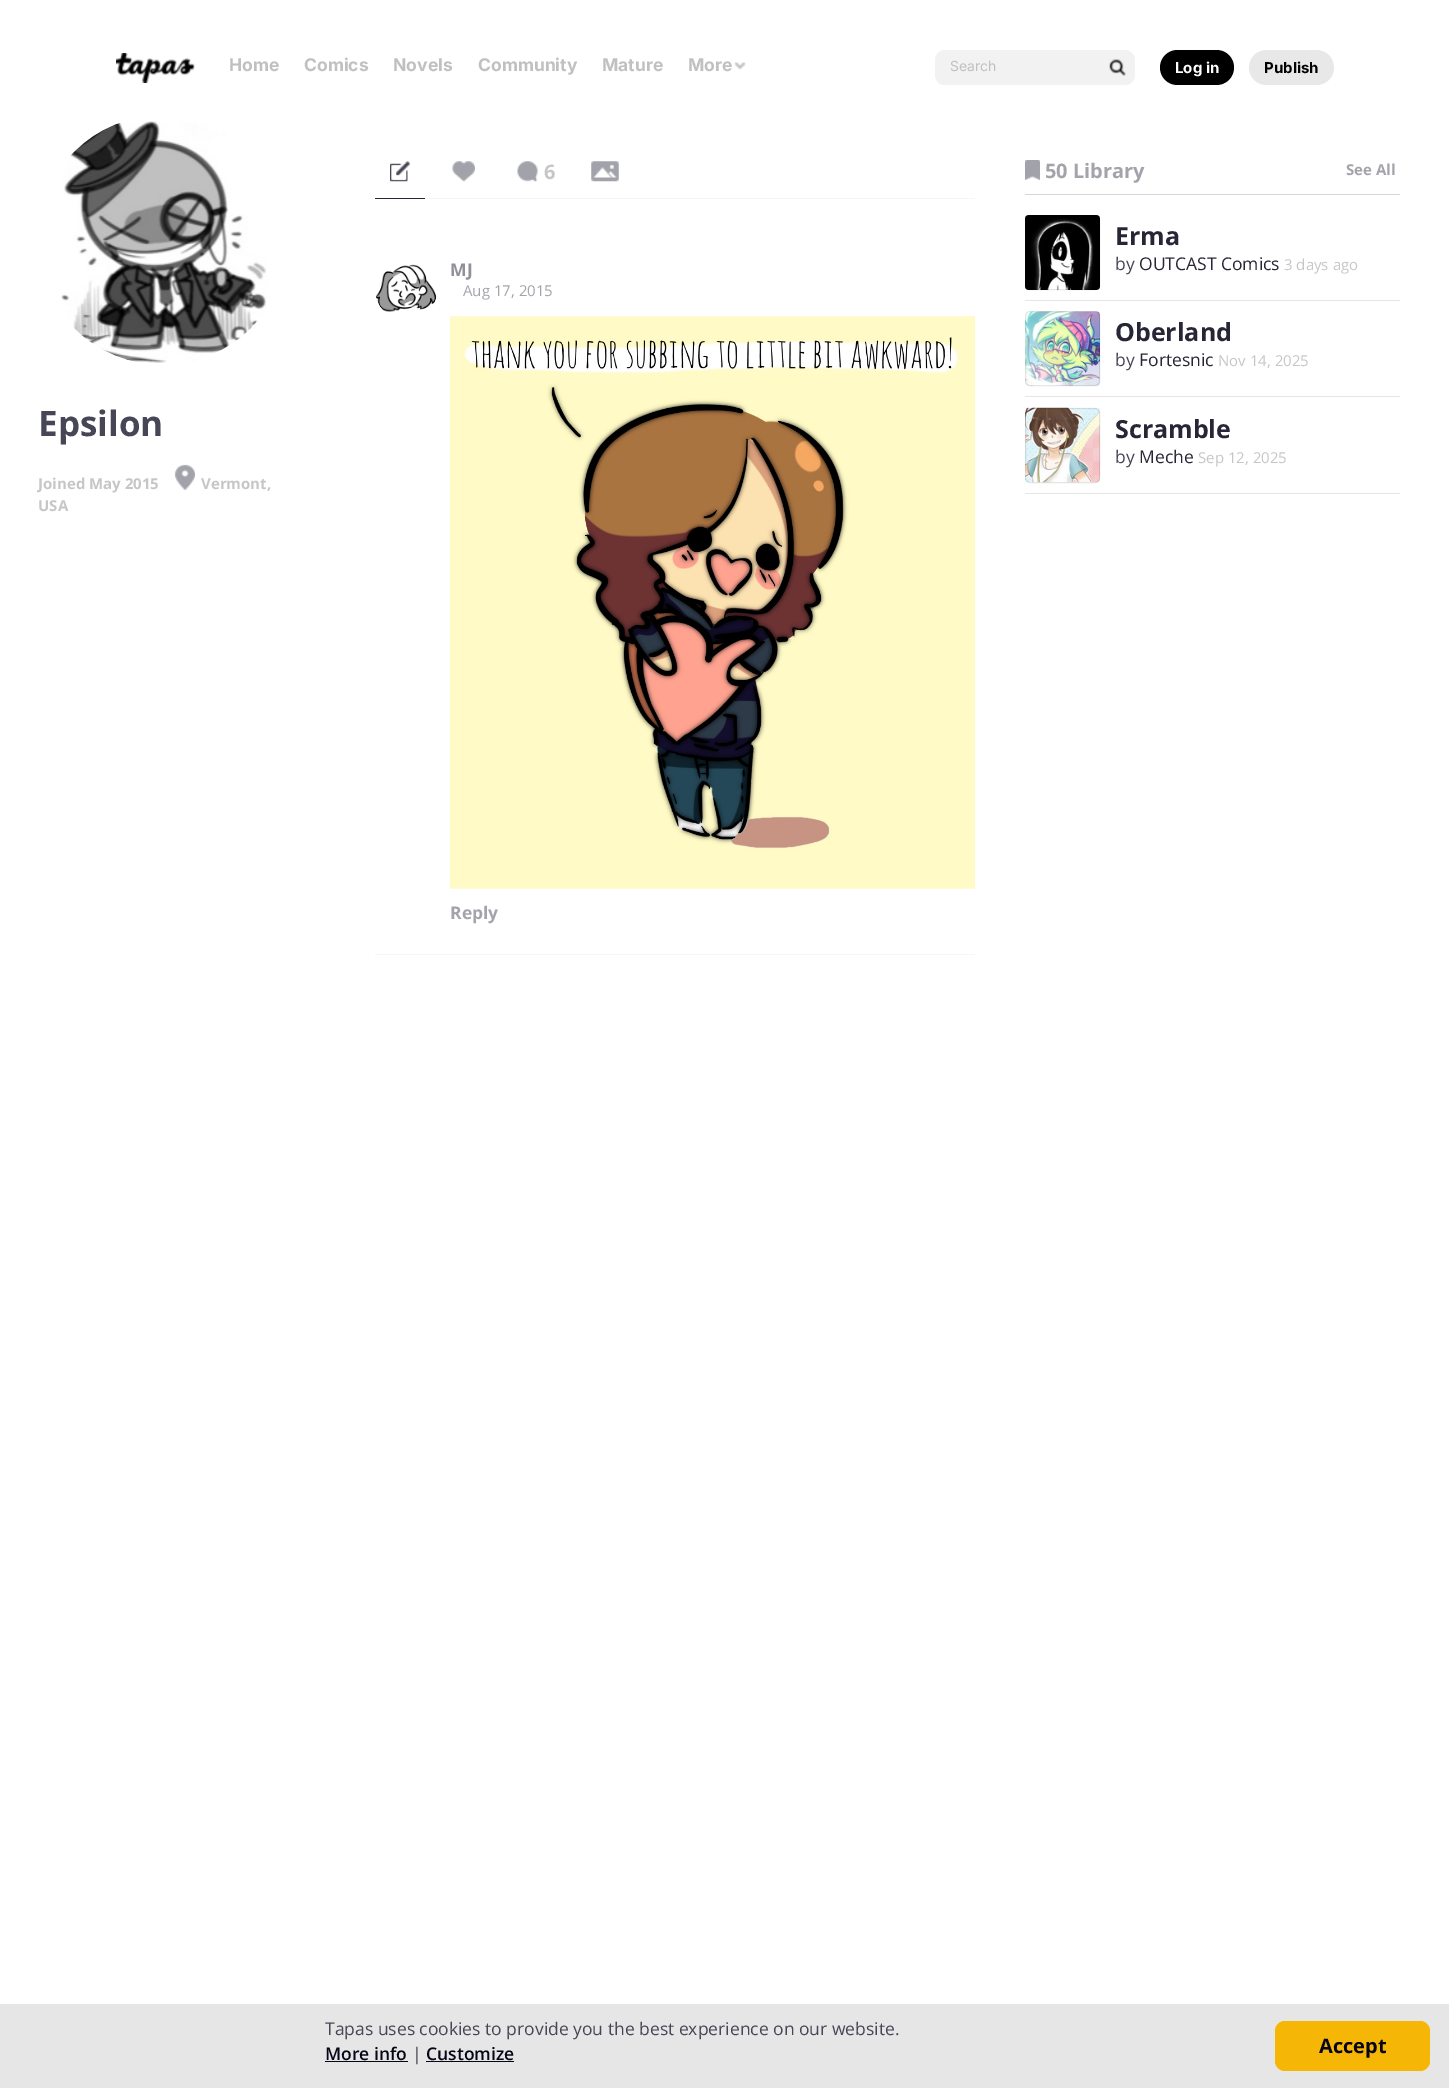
%!PS
<< /PageSize [1449 2088] /PageUsesTransparency true >> setpagedevice
/rgb { dup -16 bitshift 255 div exch dup -8 bitshift 255 and 255 div exch 255 and 255 div setrgbcolor } def
/font { [ exch dup neg 0 0 3 -1 roll 0 0 ] selectfont } def
/text { moveto show } def
/alpha { dup .setfillconstantalpha .setstrokeconstantalpha } def
/roundrect { 5 dict begin { /r /h /w /y /x } { exch def } forall
  x r add y moveto x w add y 2 copy h add r arct x w add y h add x 1 index r arct
  x y h add x y r arct x y 2 copy exch w add exch r arct closepath end } def
/picture { 5 dict begin { /h /w /y /x /name } { exch def } forall
  gsave x y translate w h scale
  w h 8 [w 0 0 h 0 0] name (r) file false 3 colorimage grestore end } def
0 .pushpdf14devicefilter
0 2088 translate 1 -1 scale
4 setmiterlimit
/s1 { /Inter-Bold 17.5 font 16#C0C0C0 rgb } def
/s2 { /Inter-Regular 14 font 16#C0C0C0 rgb } def
/s3 { /Inter-Bold 15 font 16#FFFFFF rgb } def
/s4 { /Inter-Bold 15 font 16#000000 rgb } def
/s5 { /OpenSans-Bold 35 font 16#464656 rgb } def
/s6 { /OpenSans-Bold 15 font 16#C6C6C6 rgb } def
/s7 { /OpenSans-Bold 20 font 16#C6C6C6 rgb } def
/s8 { /OpenSans-Bold 20 font 16#A3A3AB rgb } def
/s9 { /OpenSans-Bold 15 font 16#A3A3AB rgb } def
/s10 { /OpenSans-Bold 25 font 16#262636 rgb } def
/s11 { /OpenSans-Regular 17.5 font 16#464656 rgb } def
/s12 { /OpenSans-Regular 17.5 font 16#262636 rgb } def
/s13 { /OpenSans-Regular 15 font 16#C6C6C6 rgb } def
/s14 { /OpenSans-Bold 17.5 font 16#90909A rgb } def
/s15 { /OpenSans-Regular 15 font 16#A3A3AB rgb } def
/s16 { /OpenSans-Bold 17.5 font 16#A3A3AB rgb } def
/s17 { /OpenSans-SemiBold 17.5 font 16#060616 rgb } def
/s18 { /OpenSans-Bold 20 font 16#060616 rgb } def
16#FFFFFF rgb
0 0 1449 2088 rectfill
(pic1.raw) 116 53 79 30 picture
s1
(Home) 229 71 text
(Comics) 304 71 text
(Novels) 393 71 text
(Community) 478 71 text
(Mature) 602 71 text
(More) 688 71 text
(pic2.raw) 734 62 12 8 picture
16#F2F2F2 rgb
935 50 200 35 10 roundrect fill
s2
(Search) 950 71 text
(pic3.raw) 1109 59 17 17 picture
16#000000 rgb
1160 50 74 35 17.5 roundrect fill
s3
(Log in) 1175 73 text
16#E8E8E8 rgb
1249 50 85 35 17.5 roundrect fill
s4
(Publish) 1264 73 text
(pic4.raw) 61 121 206 242 picture
s5
(Epsilon) 38 436 text
s6
(Joined May 2015) 38 489 text
(pic5.raw) 174 464 21 26 picture
(Vermont,) 201 489 text
(USA) 38 511 text
16#F6F6F6 rgb
425 198 550 1 rectfill
16#262636 rgb
375 198 50 1 rectfill
(pic6.raw) 390 161 20 21 picture
(pic7.raw) 452 161 23 21 picture
(pic8.raw) 517 161 21 21 picture
s7
(6) 544 179 text
(pic9.raw) 591 161 28 21 picture
16#D6D6D6 rgb
1025 194 375 1 rectfill
(pic10.raw) 1025 160 15 20 picture
s8
(50 Library) 1045 178 text
s9
(See All) 1346 175 text
16#E6E6E6 rgb
1025 300 375 1 rectfill
(pic11.raw) 1025 215 75 75 picture
0.1 alpha
16#060616 rgb
1025.5 215.5 74 74 4.5 roundrect stroke
1 alpha
s10
(Erma) 1115 245 text
s11
(by) 1115 270 text
s12
(OUTCAST Comics) 1139 270 text
s13
(3 days ago) 1284 270 text
16#E6E6E6 rgb
1025 396 375 1 rectfill
(pic12.raw) 1025 311 75 75 picture
0.1 alpha
16#060616 rgb
1025.5 311.5 74 74 4.5 roundrect stroke
1 alpha
s10
(Oberland) 1115 341 text
s11
(by) 1115 366 text
s12
(Fortesnic) 1139 366 text
s13
(Nov 14, 2025) 1218 366 text
16#E6E6E6 rgb
1025 493 375 1 rectfill
(pic13.raw) 1025 407 75 76 picture
0.1 alpha
16#060616 rgb
1025.5 408.5 74 74 4.5 roundrect stroke
1 alpha
s10
(Scramble) 1115 438 text
s11
(by) 1115 463 text
s12
(Meche) 1139 463 text
s13
(Sep 12, 2025) 1198 463 text
16#F6F6F6 rgb
375 954 600 1 rectfill
(pic14.raw) 376 264 61 48 picture
s14
(MJ) 450 276 text
s15
(Aug 17, 2015) 463 296 text
(pic15.raw) 450 316 525 573 picture
s16
(Reply) 450 919 text
16#E6E6E6 rgb
0 2004 1449 84 rectfill
s11
(Tapas uses cookies to provide you the best experience on our website.) 325 2035 text
s17
(More info) 325 2060 text
325 2061 83 1 rectfill
s11
(|) 412 2060 text
s17
(Customize) 426 2060 text
426 2061 88 1 rectfill
16#F6B606 rgb
1275 2021 155 50 10 roundrect fill
s18
(Accept) 1319 2053 text
.poppdf14devicefilter showpage
